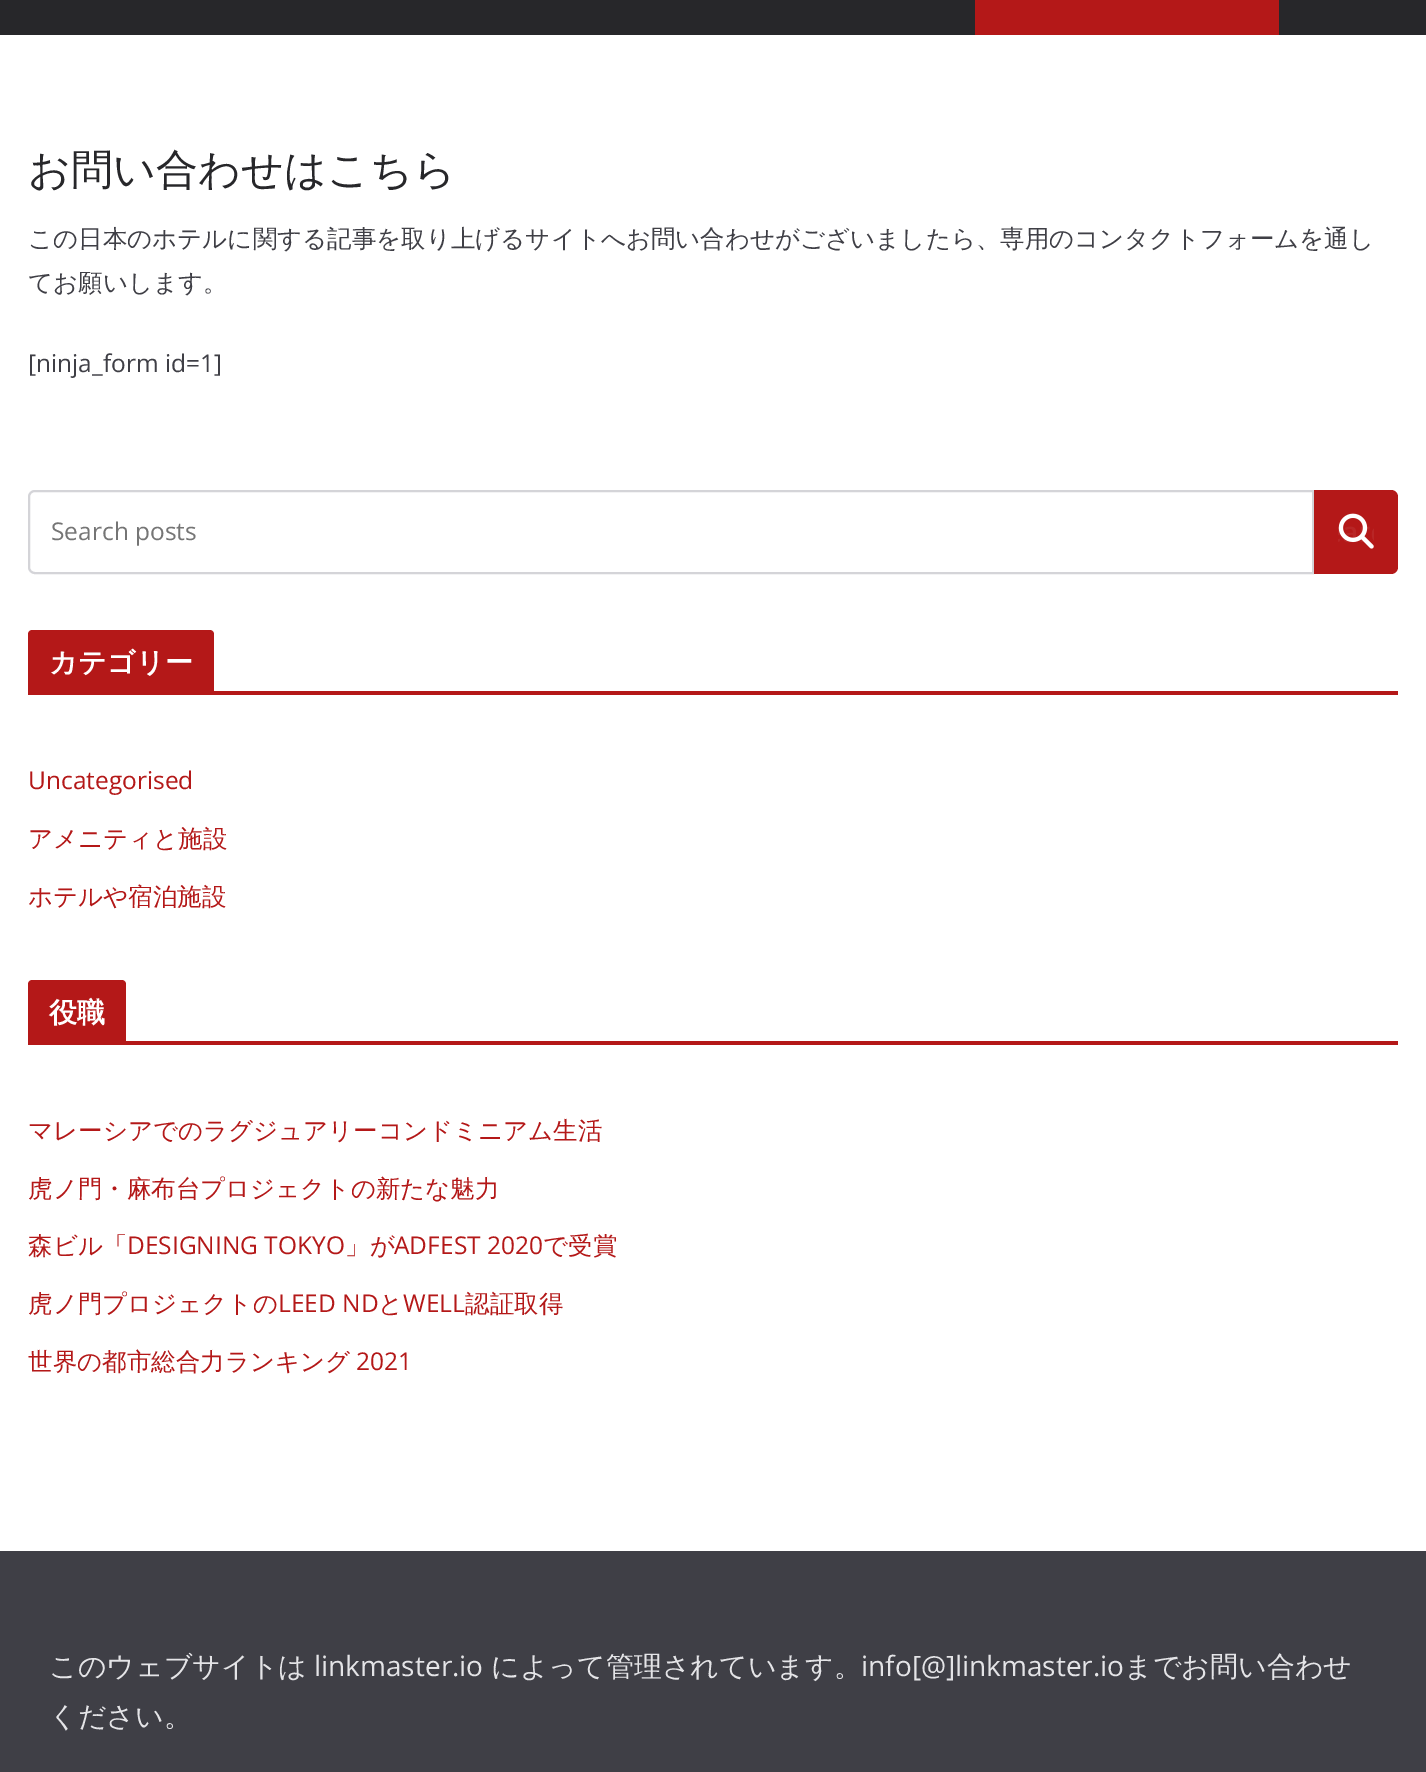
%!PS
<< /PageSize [1426 1772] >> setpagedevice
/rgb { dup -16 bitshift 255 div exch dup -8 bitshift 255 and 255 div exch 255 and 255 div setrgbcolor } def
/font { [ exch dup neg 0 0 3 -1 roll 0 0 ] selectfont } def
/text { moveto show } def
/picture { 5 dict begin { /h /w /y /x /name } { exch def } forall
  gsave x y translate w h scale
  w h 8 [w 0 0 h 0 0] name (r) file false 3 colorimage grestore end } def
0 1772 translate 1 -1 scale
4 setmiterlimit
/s1 { /WenQuanYiZenHei-Medium 42 font 16#27272A rgb } def
/s2 { /WenQuanYiZenHei-Medium 24.5 font 16#3F3F46 rgb } def
/s3 { /OpenSans-Regular 24.5 font 16#3F3F46 rgb } def
/s4 { /OpenSans-Regular 24.5 font 16#757575 rgb } def
/s5 { /OpenSans-Regular 24.5 font 16#B41818 rgb } def
/s6 { /WenQuanYiZenHei-Medium 24.5 font 16#B41818 rgb } def
/s7 { /WenQuanYiZenHei-Medium 28 font 16#E4E4E7 rgb } def
/s8 { /OpenSans-Regular 28 font 16#E4E4E7 rgb } def
16#FFFFFF rgb
0 0 1426 1772 rectfill
16#27272A rgb
0 0 1426 35 rectfill
16#B41818 rgb
975 0 304 35 rectfill
s1
(お問い合わせはこちら) 28 184 text
s2
(この日本のホテルに関する記事を取り上げるサイトへお問い合わせがございましたら、専用のコンタクトフォームを通し) 28 247 text
(てお願いします。) 28 291 text
s3
([ninja_form id=1]) 28 372 text
16#D4D4D8 rgb
2 setlinewidth
35 491 moveto 1313 491 lineto 1313 573 lineto 35 573 lineto 31.5 573 29 570.5 29 567 curveto 29 497 lineto 29 493.5 31.5 491 35 491 curveto closepath stroke
s4
(Search posts) 51 540 text
16#B41818 rgb
1314 490 moveto 1391 490 lineto 1395 490 1398 493 1398 497 curveto 1398 567 lineto 1398 571 1395 574 1391 574 curveto 1314 574 lineto closepath fill
(pic1.raw) 1338 513 36 36 picture
28 691 1370 4 rectfill
32 630 moveto 210 630 lineto 212 630 214 632 214 634 curveto 214 691 lineto 28 691 lineto 28 634 lineto 28 632 30 630 32 630 curveto closepath fill
/WenQuanYiZenHei-Bold 28 font
16#FFFFFF rgb
49 672 moveto 0.25 0 (カテゴリー) ashow
s5
(Uncategorised) 28 789 text
s6
(アメニティと施設) 28 847 text
(ホテルや宿泊施設) 28 905 text
28 1041 1370 4 rectfill
32 980 moveto 122 980 lineto 124 980 126 982 126 984 curveto 126 1041 lineto 28 1041 lineto 28 984 lineto 28 982 30 980 32 980 curveto closepath fill
/WenQuanYiZenHei-Bold 28 font
16#FFFFFF rgb
49 1022 moveto 0.25 0 (役職) ashow
s6
(マレーシアでのラグジュアリーコンドミニアム生活) 28 1139 text
(虎ノ門・麻布台プロジェクトの新たな魅力) 28 1197 text
(森ビル「) 28 1254 text
s5
(DESIGNING TOKYO) 127 1254 text
s6
(」が) 345 1254 text
s5
(ADFEST 2020) 394 1254 text
s6
(で受賞) 543 1254 text
(虎ノ門プロジェクトの) 28 1312 text
s5
(LEED ND) 278 1312 text
s6
(と) 378 1312 text
s5
(WELL) 403 1312 text
s6
(認証取得) 465 1312 text
(世界の都市総合力ランキング) 28 1370 text
s5
(2021) 356 1370 text
16#3F3F46 rgb
0 1551 1426 221 rectfill
s7
(このウェブサイトは) 49 1676 text
s8
(linkmaster.io) 314 1676 text
s7
(によって管理されています。) 491 1676 text
s8
(info[@]linkmaster.io) 861 1676 text
s7
(までお問い合わせ) 1124 1676 text
(ください。) 49 1726 text
showpage
